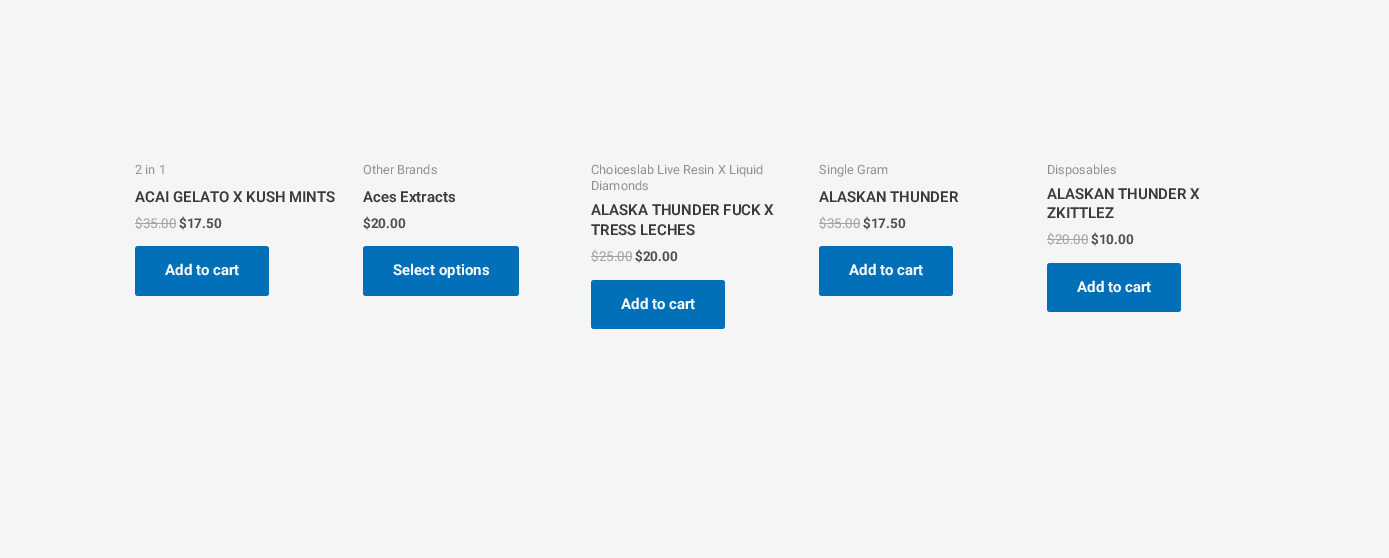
%!PS
<< /PageSize [1389 558] >> setpagedevice
/rgb { dup -16 bitshift 255 div exch dup -8 bitshift 255 and 255 div exch 255 and 255 div setrgbcolor } def
/font { [ exch dup neg 0 0 3 -1 roll 0 0 ] selectfont } def
/text { moveto show } def
/roundrect { 5 dict begin { /r /h /w /y /x } { exch def } forall
  x r add y moveto x w add y 2 copy h add r arct x w add y h add x 1 index r arct
  x y h add x y r arct x y 2 copy exch w add exch r arct closepath end } def
0 558 translate 1 -1 scale
4 setmiterlimit
/s1 { /Roboto-Regular 12.75 font 16#8F9197 rgb } def
/s2 { /Roboto-SemiBold 15 font 16#3A3A3A rgb } def
/s3 { /Roboto-Regular 13.5 font 16#A0A2A7 rgb } def
/s4 { /Roboto-Bold 13.5 font 16#4B4F58 rgb } def
/s5 { /Roboto-Bold 15 font 16#FFFFFF rgb } def
16#F5F5F5 rgb
0 0 1389 558 rectfill
s1
(2 in 1) 135 174 text
s2
(ACAI GELATO X KUSH MINTS) 135 202 text
s3
($35.00) 135 228 text
135 223 41 1 rectfill
s4
($17.50) 179 228 text
16#0170B9 rgb
135 246 134 50 3 roundrect fill
s5
(Add to cart) 165 275 text
s1
(Other Brands) 363 174 text
s2
(Aces Extracts) 363 202 text
s4
($20.00) 363 228 text
16#0170B9 rgb
363 246 156 50 3 roundrect fill
s5
(Select options) 393 275 text
s1
(Choiceslab Live Resin X Liquid) 591 174 text
(Diamonds) 591 190 text
s2
(ALASKA THUNDER FUCK X) 591 215 text
(TRESS LECHES) 591 235 text
s3
($25.00) 591 261 text
591 256 41 1 rectfill
s4
($20.00) 635 261 text
16#0170B9 rgb
591 280 134 49 3 roundrect fill
s5
(Add to cart) 621 309 text
s1
(Single Gram) 819 174 text
s2
(ALASKAN THUNDER) 819 202 text
s3
($35.00) 819 228 text
819 223 41 1 rectfill
s4
($17.50) 863 228 text
16#0170B9 rgb
819 246 134 50 3 roundrect fill
s5
(Add to cart) 849 275 text
s1
(Disposables) 1047 174 text
s2
(ALASKAN THUNDER X) 1047 199 text
(ZKITTLEZ) 1047 218 text
s3
($20.00) 1047 244 text
1047 239 41 1 rectfill
s4
($10.00) 1091 244 text
16#0170B9 rgb
1047 263 134 49 3 roundrect fill
s5
(Add to cart) 1077 292 text
showpage
